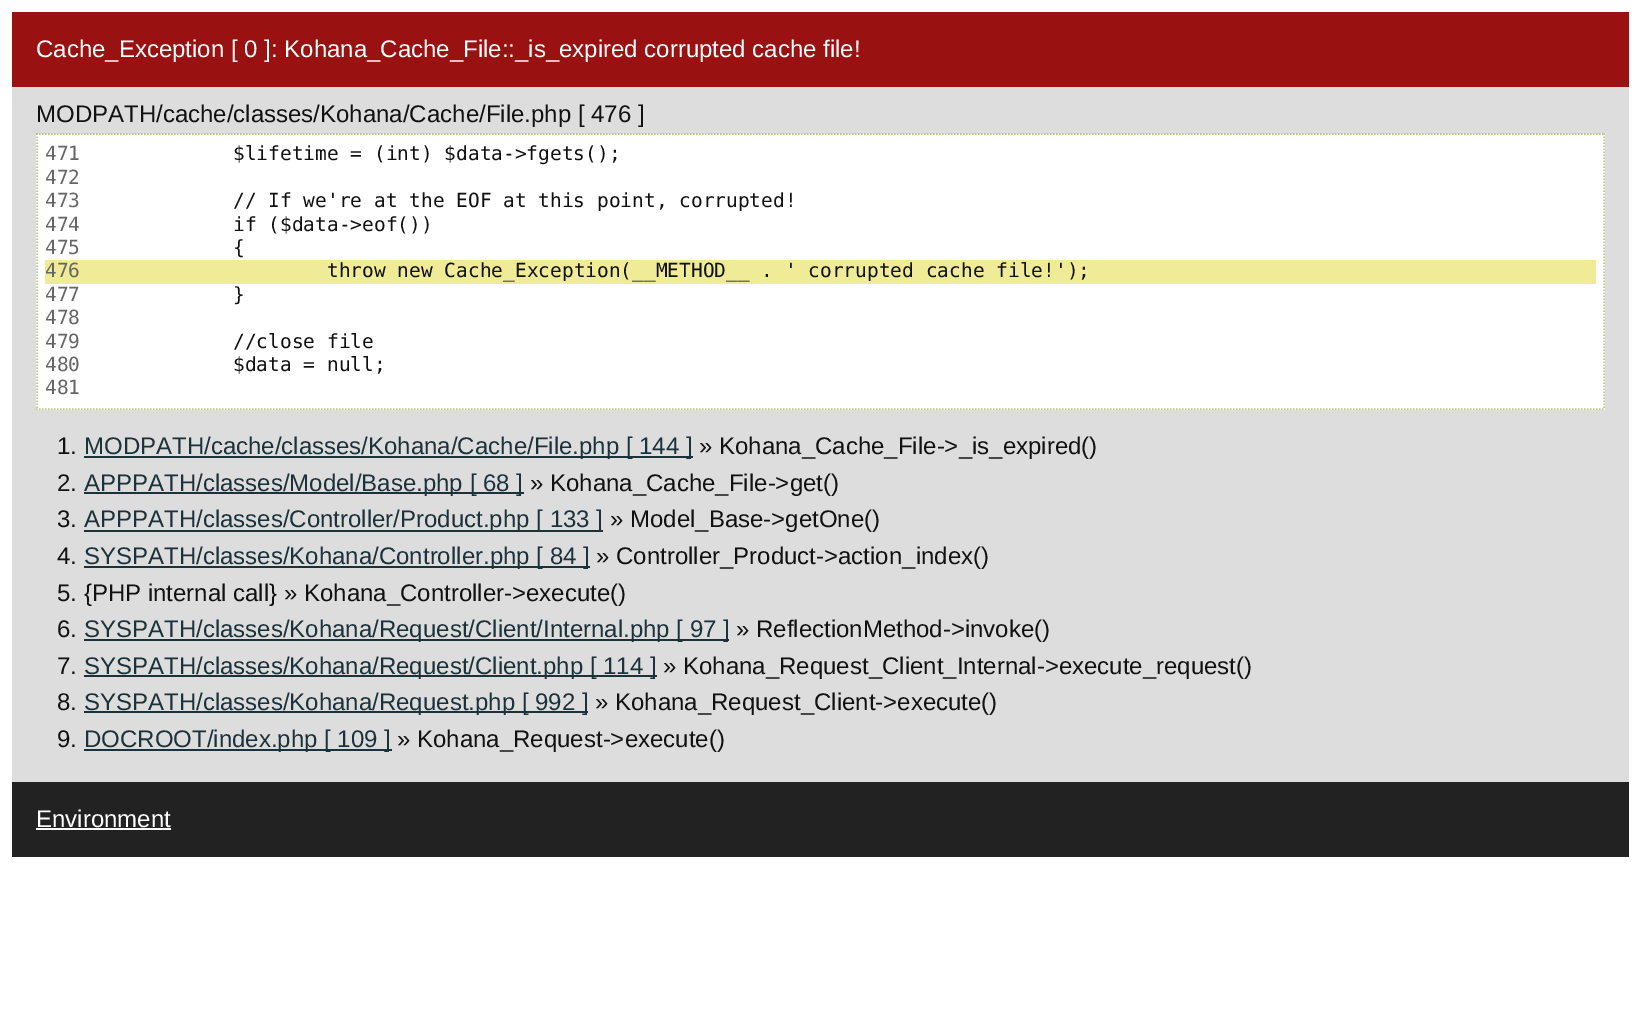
%!PS
<< /PageSize [1640 1026] >> setpagedevice
/rgb { dup -16 bitshift 255 div exch dup -8 bitshift 255 and 255 div exch 255 and 255 div setrgbcolor } def
/font { [ exch dup neg 0 0 3 -1 roll 0 0 ] selectfont } def
/text { moveto show } def
0 1026 translate 1 -1 scale
4 setmiterlimit
/s1 { /LiberationSans-Regular 24 font 16#FFFFFF rgb } def
/s2 { /LiberationSans-Regular 24 font 16#111111 rgb } def
/s3 { /DejaVuSansMono-Regular 19.5 font 16#666666 rgb } def
/s4 { /DejaVuSansMono-Regular 19.5 font 16#111111 rgb } def
/s5 { /LiberationSans-Regular 24 font 16#1B323B rgb } def
16#FFFFFF rgb
0 0 1640 1026 rectfill
16#DDDDDD rgb
12 87 1617 695 rectfill
16#991111 rgb
12 12 1617 75 rectfill
s1
(Cache_Exception [ 0 ]: Kohana_Cache_File::_is_expired corrupted cache file!) 36 57 text
s2
(MODPATH/cache/classes/Kohana/Cache/File.php [ 476 ]) 36 122 text
16#FFFFFF rgb
36 134 1569 276 rectfill
16#B7C680 rgb
1.5 setlinewidth
[1.5 1.5] 0 setdash
36 134 moveto 1605 134 lineto stroke
1604 133.5 moveto 1604 409.5 lineto stroke
36 409 moveto 1605 409 lineto stroke
37 133.5 moveto 37 409.5 lineto stroke
s3
(471) 45 160 text
s4
($lifetime = \(int\) $data->fgets\(\);) 233 160 text
s3
(472) 45 184 text
(473) 45 207 text
s4
(// If we're at the EOF at this point, corrupted!) 233 207 text
s3
(474) 45 231 text
s4
(if \($data->eof\(\)\)) 233 231 text
s3
(475) 45 254 text
s4
({) 233 254 text
16#F0EB96 rgb
45 260 1551 24 rectfill
s3
(476) 45 277 text
s4
(throw new Cache_Exception\(__METHOD__ . ' corrupted cache file!'\);) 327 277 text
s3
(477) 45 301 text
s4
(}) 233 301 text
s3
(478) 45 324 text
(479) 45 348 text
s4
(//close file) 233 348 text
s3
(480) 45 371 text
s4
($data = null;) 233 371 text
s3
(481) 45 394 text
s2
(1.) 57 454 text
16#1B323B rgb
84 456 609 2 rectfill
(MODPATH/cache/classes/Kohana/Cache/File.php [ 144 ]) 84 454 text
s2
(» Kohana_Cache_File->_is_expired\(\)) 699 454 text
(2.) 57 491 text
16#1B323B rgb
84 492 440 2 rectfill
(APPPATH/classes/Model/Base.php [ 68 ]) 84 491 text
s2
(» Kohana_Cache_File->get\(\)) 530 491 text
(3.) 57 527 text
16#1B323B rgb
84 530 519 2 rectfill
(APPPATH/classes/Controller/Product.php [ 133 ]) 84 527 text
s2
(» Model_Base->getOne\(\)) 610 527 text
(4.) 57 564 text
16#1B323B rgb
84 566 506 2 rectfill
(SYSPATH/classes/Kohana/Controller.php [ 84 ]) 84 564 text
s2
(» Controller_Product->action_index\(\)) 596 564 text
(5. {PHP internal call} » Kohana_Controller->execute\(\)) 57 601 text
(6.) 57 637 text
16#1B323B rgb
84 639 645 2 rectfill
(SYSPATH/classes/Kohana/Request/Client/Internal.php [ 97 ]) 84 637 text
s2
(» ReflectionMethod->invoke\(\)) 736 637 text
(7.) 57 674 text
16#1B323B rgb
84 675 573 2 rectfill
(SYSPATH/classes/Kohana/Request/Client.php [ 114 ]) 84 674 text
s2
(» Kohana_Request_Client_Internal->execute_request\(\)) 663 674 text
(8.) 57 710 text
16#1B323B rgb
84 711 504 2 rectfill
(SYSPATH/classes/Kohana/Request.php [ 992 ]) 84 710 text
s2
(» Kohana_Request_Client->execute\(\)) 595 710 text
(9.) 57 747 text
16#1B323B rgb
84 749 308 2 rectfill
(DOCROOT/index.php [ 109 ]) 84 747 text
s2
(» Kohana_Request->execute\(\)) 397 747 text
16#222222 rgb
12 782 1617 75 rectfill
s1
(Environment) 36 827 text
36 828 135 2 rectfill
showpage
